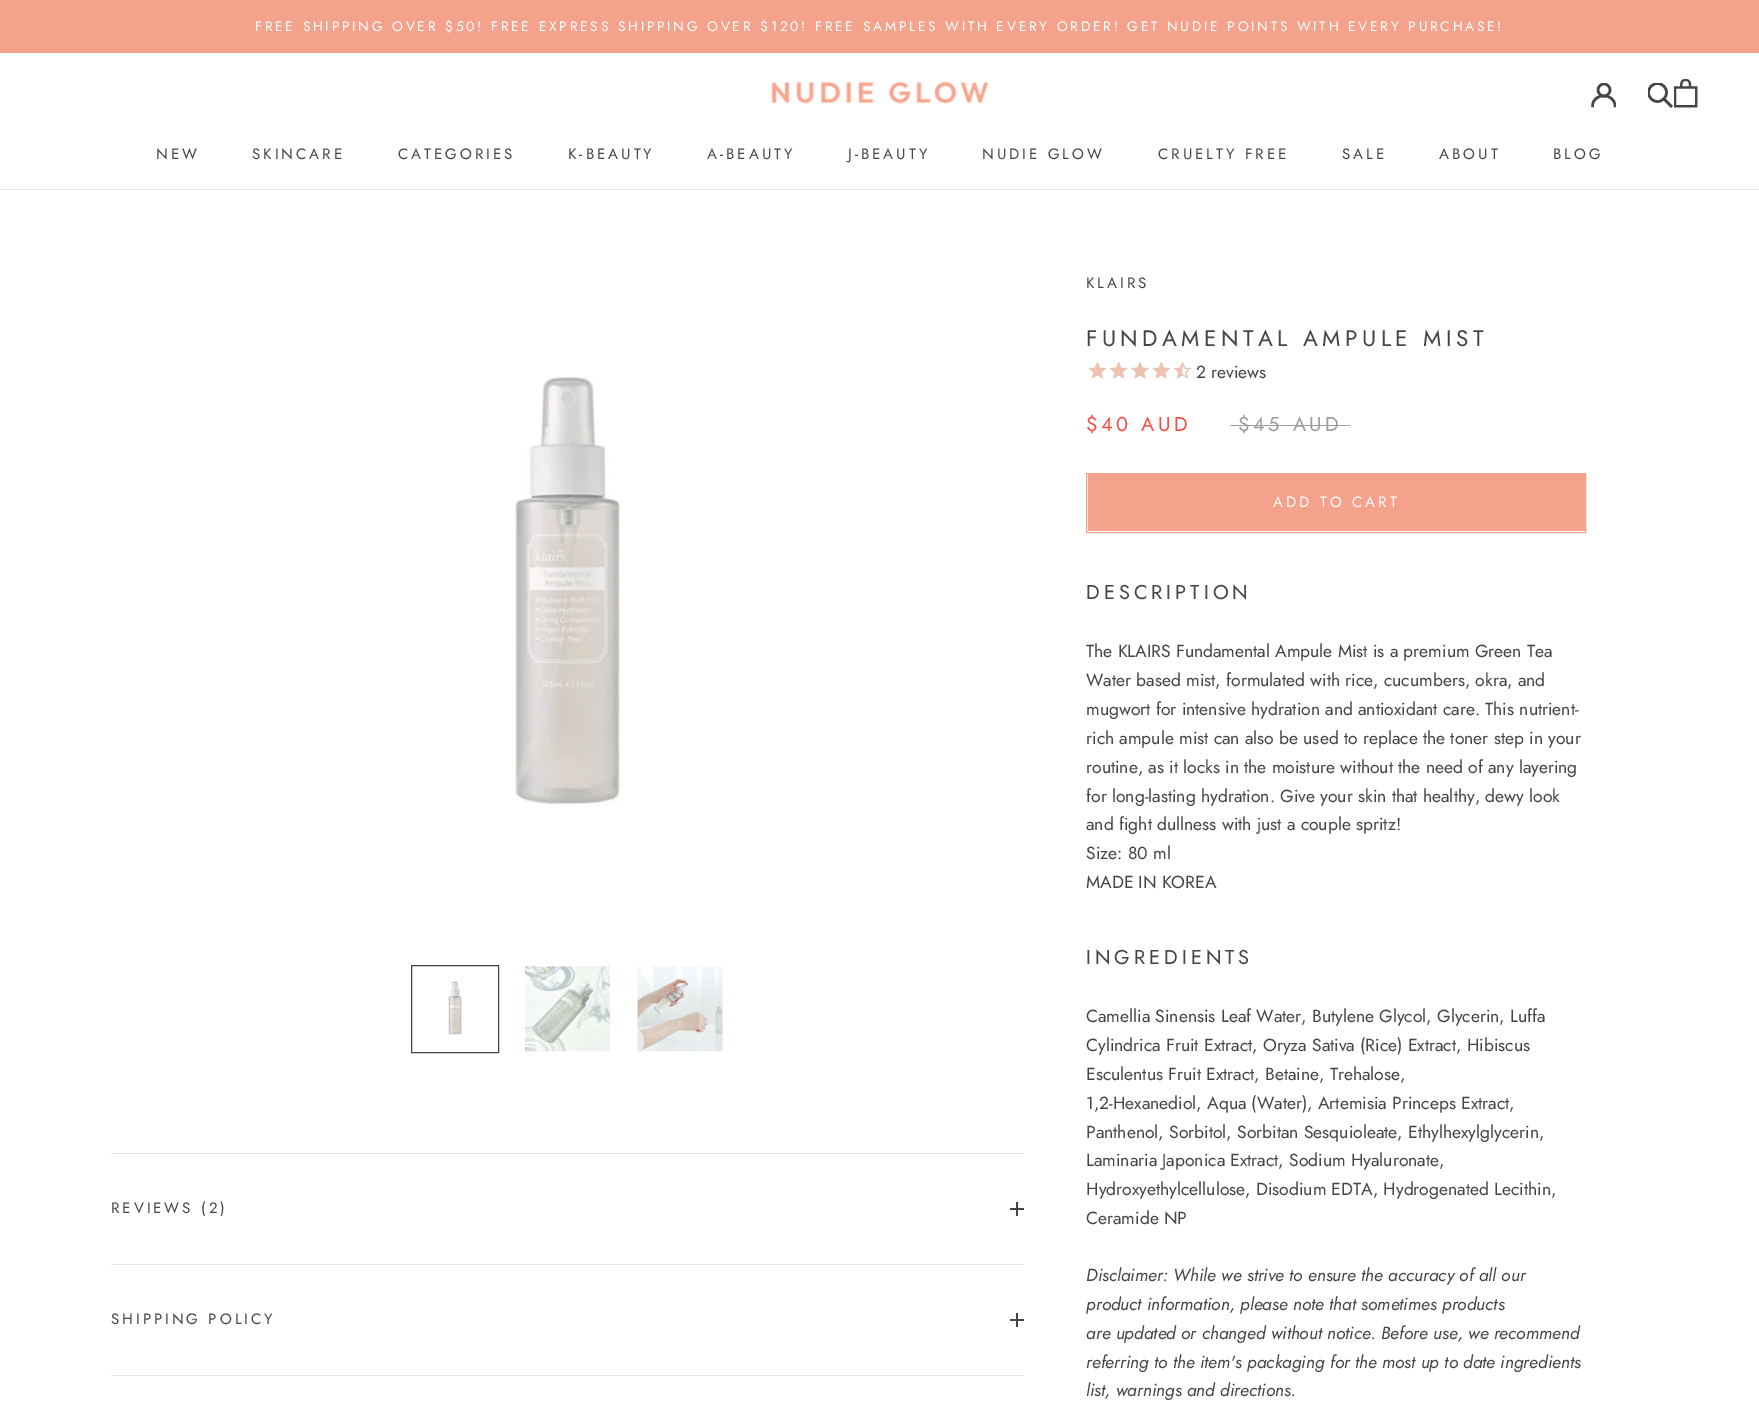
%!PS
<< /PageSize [1759 1412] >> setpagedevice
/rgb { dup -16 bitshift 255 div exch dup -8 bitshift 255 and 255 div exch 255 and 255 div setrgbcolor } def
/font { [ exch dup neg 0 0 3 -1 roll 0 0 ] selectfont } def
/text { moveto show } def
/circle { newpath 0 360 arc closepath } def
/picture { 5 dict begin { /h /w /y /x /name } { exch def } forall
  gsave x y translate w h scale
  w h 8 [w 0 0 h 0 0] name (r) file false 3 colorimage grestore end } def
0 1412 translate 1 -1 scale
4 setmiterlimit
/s1 { /Jost-Regular 17.5 font 16#454545 rgb } def
/s2 { /Jost-Italic 17.5 font 16#454545 rgb } def
16#FFFFFF rgb
0 0 1759 1412 rectfill
16#F5A28C rgb
0 0 1759 53 rectfill
/Jost-Regular 13.75 font
16#FFFFFF rgb
255 31 moveto 2.75 0 (FREE SHIPPING OVER $50! FREE EXPRESS SHIPPING OVER $120! FREE SAMPLES WITH EVERY ORDER! GET NUDIE POINTS WITH EVERY PURCHASE!) ashow
16#E3E3E3 rgb
0 189 1759 1 rectfill
(pic1.raw) 771 81 218 23 picture
gsave
1591 83 25 25 rectclip
16#454545 rgb
2.5 setlinewidth
2 setlinecap
1592.5 106 moveto 1592.5 92.5 1615 92.5 1615 106 curveto stroke
0 setlinecap
1604 90 6 circle stroke
grestore
16#454545 rgb
2.5 setlinewidth
2 setlinecap
1671 106 moveto 1664 99 lineto stroke
gsave
1648 83 26 26 rectclip
0 setlinecap
1657.5 92.5 9 circle stroke
grestore
(pic2.raw) 1674 79 24 29 picture
/Jost-Regular 15 font
156 159 moveto 3 0 (NEW) ashow
252 159 moveto 3 0 (SKINCARE) ashow
398 159 moveto 3 0 (CATEGORIES) ashow
568 159 moveto 3 0 (K-BEAUTY) ashow
707 159 moveto 3 0 (A-BEAUTY) ashow
848 159 moveto 3 0 (J-BEAUTY) ashow
982 159 moveto 3 0 (NUDIE GLOW) ashow
1158 159 moveto 3 0 (CRUELTY FREE) ashow
1342 159 moveto 3 0 (SALE) ashow
1439 159 moveto 3 0 (ABOUT) ashow
1553 159 moveto 3 0 (BLOG) ashow
(pic3.raw) 513 376 110 430 picture
1 setlinewidth
0 setlinecap
411.5 965.5 87 87 rectstroke
(pic4.raw) 448 981 15 54 picture
(pic5.raw) 525 966 85 86 picture
(pic6.raw) 637 966 86 86 picture
1086 288 moveto 3 0 (KLAIRS) ashow
/Jost-Regular 22.5 font
1086 346 moveto 4.5 0 (FUNDAMENTAL AMPULE MIST) ashow
(pic7.raw) 1088 361 19 18 picture
(pic8.raw) 1109 361 19 18 picture
(pic9.raw) 1130 361 20 18 picture
(pic10.raw) 1152 361 19 18 picture
(pic11.raw) 1173 361 19 18 picture
s1
(2 reviews) 1196 378 text
/Jost-Regular 20 font
16#F94C43 rgb
1086 431 moveto 3.5 0 ($40 AUD) ashow
16#9D9D9D rgb
1238 431 moveto 3.5 0 ($45 AUD) ashow
1230 425 120 1 rectfill
16#F5A28C rgb
1086.5 473.5 499 59 rectstroke
1088 474 497 57 rectfill
/Jost-Regular 15 font
16#FFFFFF rgb
1273 507 moveto 3 0 (ADD TO CART) ashow
/Jost-Regular 20 font
16#454545 rgb
1086 599 moveto 4 0 (DESCRIPTION) ashow
s1
(The KLAIRS Fundamental Ampule Mist is a premium Green Tea) 1086 657 text
(Water based mist, formulated with rice, cucumbers, okra, and) 1086 686 text
(mugwort for intensive hydration and antioxidant care. This nutrient-) 1086 715 text
(rich ampule mist can also be used to replace the toner step in your) 1086 744 text
(routine, as it locks in the moisture without the need of any layering) 1086 773 text
(for long-lasting hydration. Give your skin that healthy, dewy look) 1086 802 text
(and fight dullness with just a couple spritz!) 1086 830 text
(Size: 80 ml) 1086 859 text
(MADE IN KOREA) 1086 888 text
/Jost-Regular 20 font
1086 964 moveto 4 0 (INGREDIENTS) ashow
s1
(Camellia Sinensis Leaf Water, Butylene Glycol, Glycerin, Luffa) 1086 1022 text
(Cylindrica Fruit Extract, Oryza Sativa \(Rice\) Extract, Hibiscus) 1086 1051 text
(Esculentus Fruit Extract, Betaine, Trehalose,) 1086 1080 text
(1,2-Hexanediol, Aqua \(Water\), Artemisia Princeps Extract,) 1086 1109 text
(Panthenol, Sorbitol, Sorbitan Sesquioleate, Ethylhexylglycerin,) 1086 1138 text
(Laminaria Japonica Extract, Sodium Hyaluronate,) 1086 1166 text
(Hydroxyethylcellulose, Disodium EDTA, Hydrogenated Lecithin,) 1086 1195 text
(Ceramide NP) 1086 1224 text
s2
(Disclaimer: While we strive to ensure the accuracy of all our) 1086 1281 text
(product information, please note that sometimes products) 1086 1310 text
(are updated or changed without notice. Before use, we recommend) 1086 1339 text
(referring to the item's packaging for the most up to date ingredients) 1086 1368 text
(list, warnings and directions.) 1086 1396 text
16#E3E3E3 rgb
111 1153 913 1 rectfill
111 1264 913 1 rectfill
/Jost-Regular 15 font
16#454545 rgb
111 1213 moveto 3 0 (REVIEWS \(2\)) ashow
1016 1202 2 14 rectfill
1010 1208 14 2 rectfill
16#E3E3E3 rgb
111 1375 913 1 rectfill
16#454545 rgb
111 1324 moveto 3 0 (SHIPPING POLICY) ashow
1016 1313 2 14 rectfill
1010 1319 14 2 rectfill
showpage
